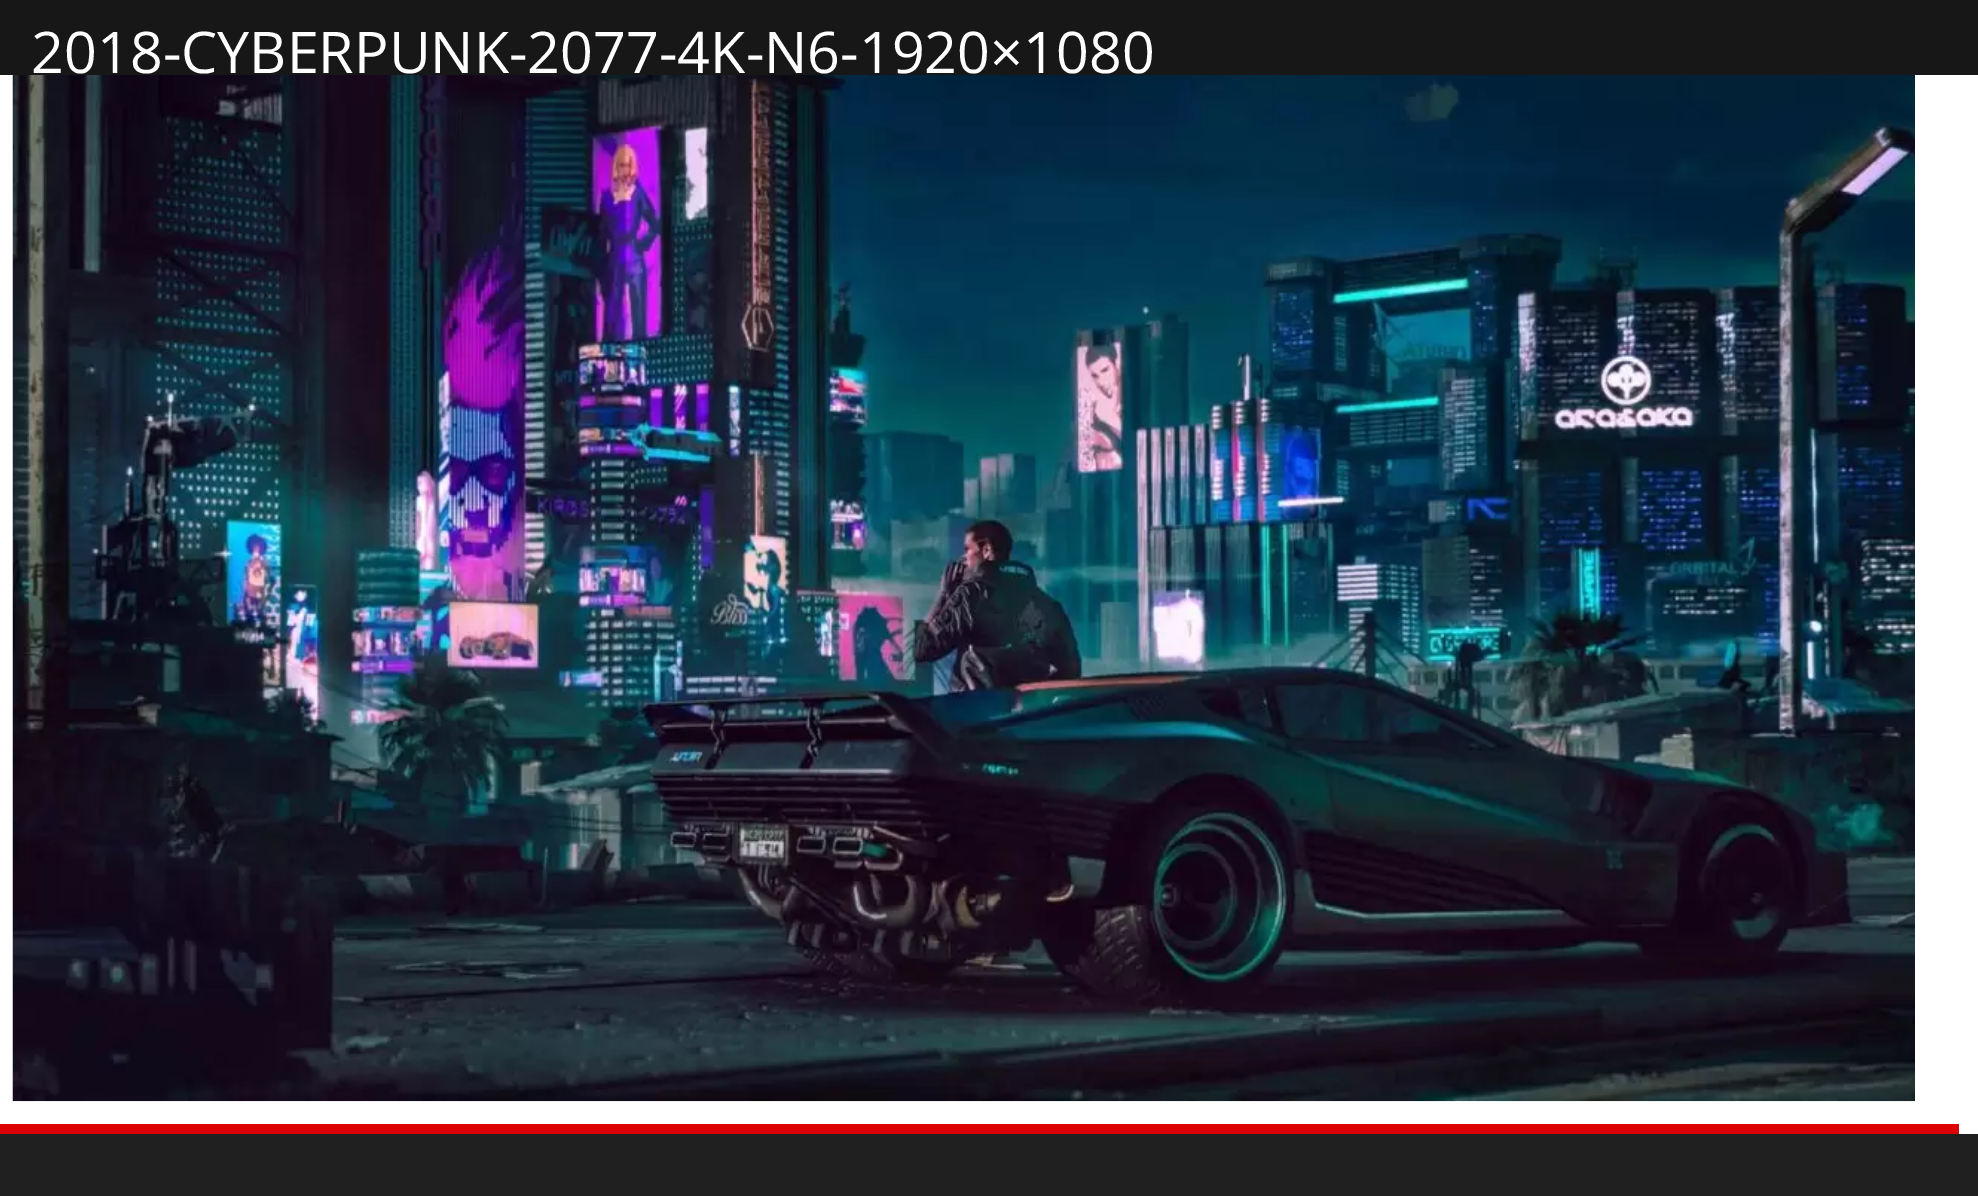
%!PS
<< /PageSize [1978 1196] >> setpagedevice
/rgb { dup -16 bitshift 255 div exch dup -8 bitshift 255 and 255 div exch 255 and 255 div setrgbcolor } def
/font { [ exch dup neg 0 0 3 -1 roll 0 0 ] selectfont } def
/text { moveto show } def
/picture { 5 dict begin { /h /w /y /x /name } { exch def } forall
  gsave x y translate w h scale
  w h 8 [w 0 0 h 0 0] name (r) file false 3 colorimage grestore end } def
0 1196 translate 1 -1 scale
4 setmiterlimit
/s1 { /OpenSans-Regular 57.5 font 16#FFFFFF rgb } def
16#FFFFFF rgb
0 0 1978 1196 rectfill
16#171717 rgb
0 0 1978 75 rectfill
16#DD0000 rgb
0 1124 1959 10 rectfill
s1
(2018-CYBERPUNK-2077-4K-N6-1920×1080) 31 73 text
(pic1.raw) 12 75 1903 1027 picture
16#202020 rgb
0 1134 1978 62 rectfill
showpage
